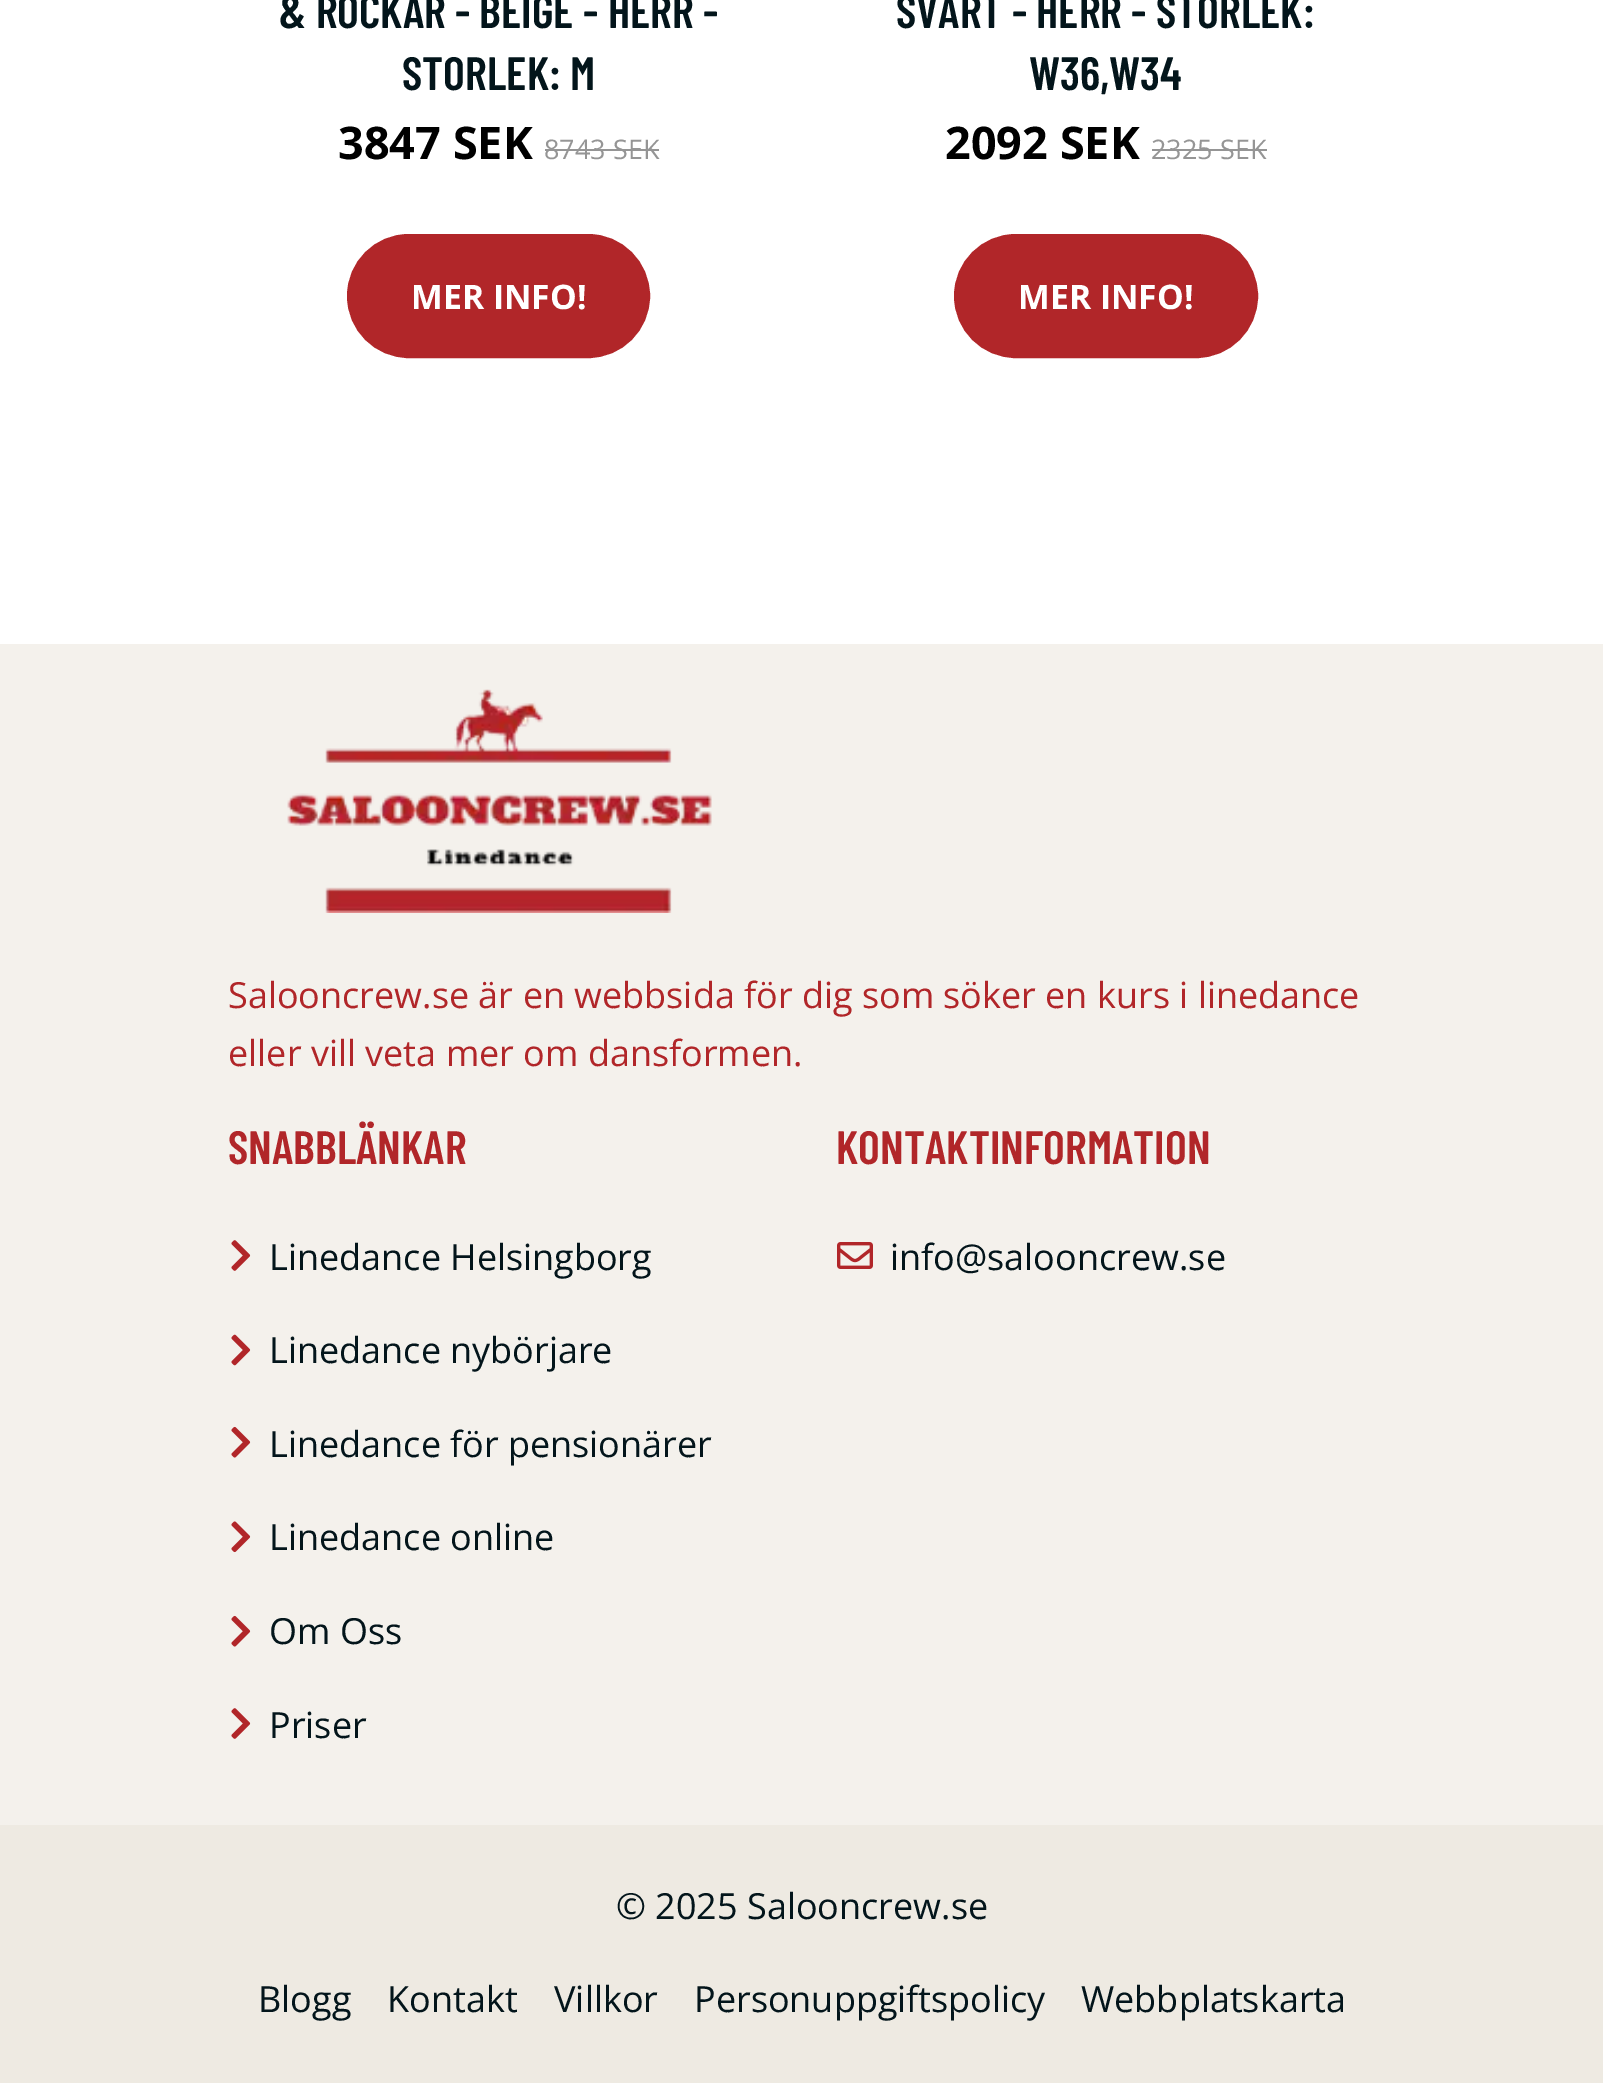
%!PS
<< /PageSize [1603 2083] >> setpagedevice
/rgb { dup -16 bitshift 255 div exch dup -8 bitshift 255 and 255 div exch 255 and 255 div setrgbcolor } def
/font { [ exch dup neg 0 0 3 -1 roll 0 0 ] selectfont } def
/text { moveto show } def
/roundrect { 5 dict begin { /r /h /w /y /x } { exch def } forall
  x r add y moveto x w add y 2 copy h add r arct x w add y h add x 1 index r arct
  x y h add x y r arct x y 2 copy exch w add exch r arct closepath end } def
/picture { 5 dict begin { /h /w /y /x /name } { exch def } forall
  gsave x y translate w h scale
  w h 8 [w 0 0 h 0 0] name (r) file false 3 colorimage grestore end } def
0 2083 translate 1 -1 scale
4 setmiterlimit
/s1 { /BarlowCondensed-SemiBold 46.75 font 16#03151B rgb } def
/s2 { /OpenSans-Bold 45 font 16#000000 rgb } def
/s3 { /OpenSans-Regular 27 font 16#959595 rgb } def
/s4 { /OpenSans-Bold 33.75 font 16#FFFFFF rgb } def
/s5 { /OpenSans-Regular 36 font 16#B12629 rgb } def
/s6 { /BarlowCondensed-SemiBold 46.75 font 16#B12629 rgb } def
/s7 { /OpenSans-Regular 36 font 16#03151B rgb } def
16#FFFFFF rgb
0 0 1603 2083 rectfill
s1
(& ROCKAR - BEIGE - HERR -) 279 28 text
(STORLEK: M) 402 90 text
s2
(3847 SEK) 338 159 text
s3
(8743 SEK) 544 159 text
545 149 114 2 rectfill
16#B12629 rgb
348 235 301 122 61 roundrect gsave fill grestore
2 setlinewidth
stroke
s4
(MER INFO!) 411 309 text
s1
(SVART - HERR - STORLEK:) 896 28 text
(W36,W34) 1029 90 text
s2
(2092 SEK) 945 159 text
s3
(2325 SEK) 1151 159 text
1152 149 115 2 rectfill
16#B12629 rgb
955 235 302 122 61 roundrect gsave fill grestore
stroke
s4
(MER INFO!) 1018 309 text
16#F4F1EC rgb
0 644 1603 1181 rectfill
(pic1.raw) 287 689 425 224 picture
s5
(Salooncrew.se är en webbsida för dig som söker en kurs i linedance) 228 1008 text
(eller vill veta mer om dansformen.) 228 1066 text
s6
(SNABBLÄNKAR) 228 1164 text
(pic2.raw) 231 1240 20 31 picture
s7
(Linedance Helsingborg) 269 1270 text
(pic3.raw) 231 1334 20 32 picture
(Linedance nybörjare) 269 1363 text
(pic4.raw) 231 1426 20 32 picture
(Linedance för pensionärer) 269 1457 text
(pic5.raw) 231 1521 20 32 picture
(Linedance online) 269 1550 text
(pic4.raw) 231 1615 20 32 picture
(Om Oss) 269 1644 text
(pic2.raw) 231 1708 20 31 picture
(Priser) 269 1738 text
s6
(KONTAKTINFORMATION) 836 1164 text
(pic6.raw) 837 1242 36 27 picture
s7
(info@salooncrew.se) 890 1270 text
16#EEEAE2 rgb
0 1825 1603 258 rectfill
s7
(© 2025 Salooncrew.se) 616 1919 text
(Blogg) 258 2012 text
(Kontakt) 387 2012 text
(Villkor) 554 2012 text
(Personuppgiftspolicy) 694 2012 text
(Webbplatskarta) 1081 2012 text
showpage
